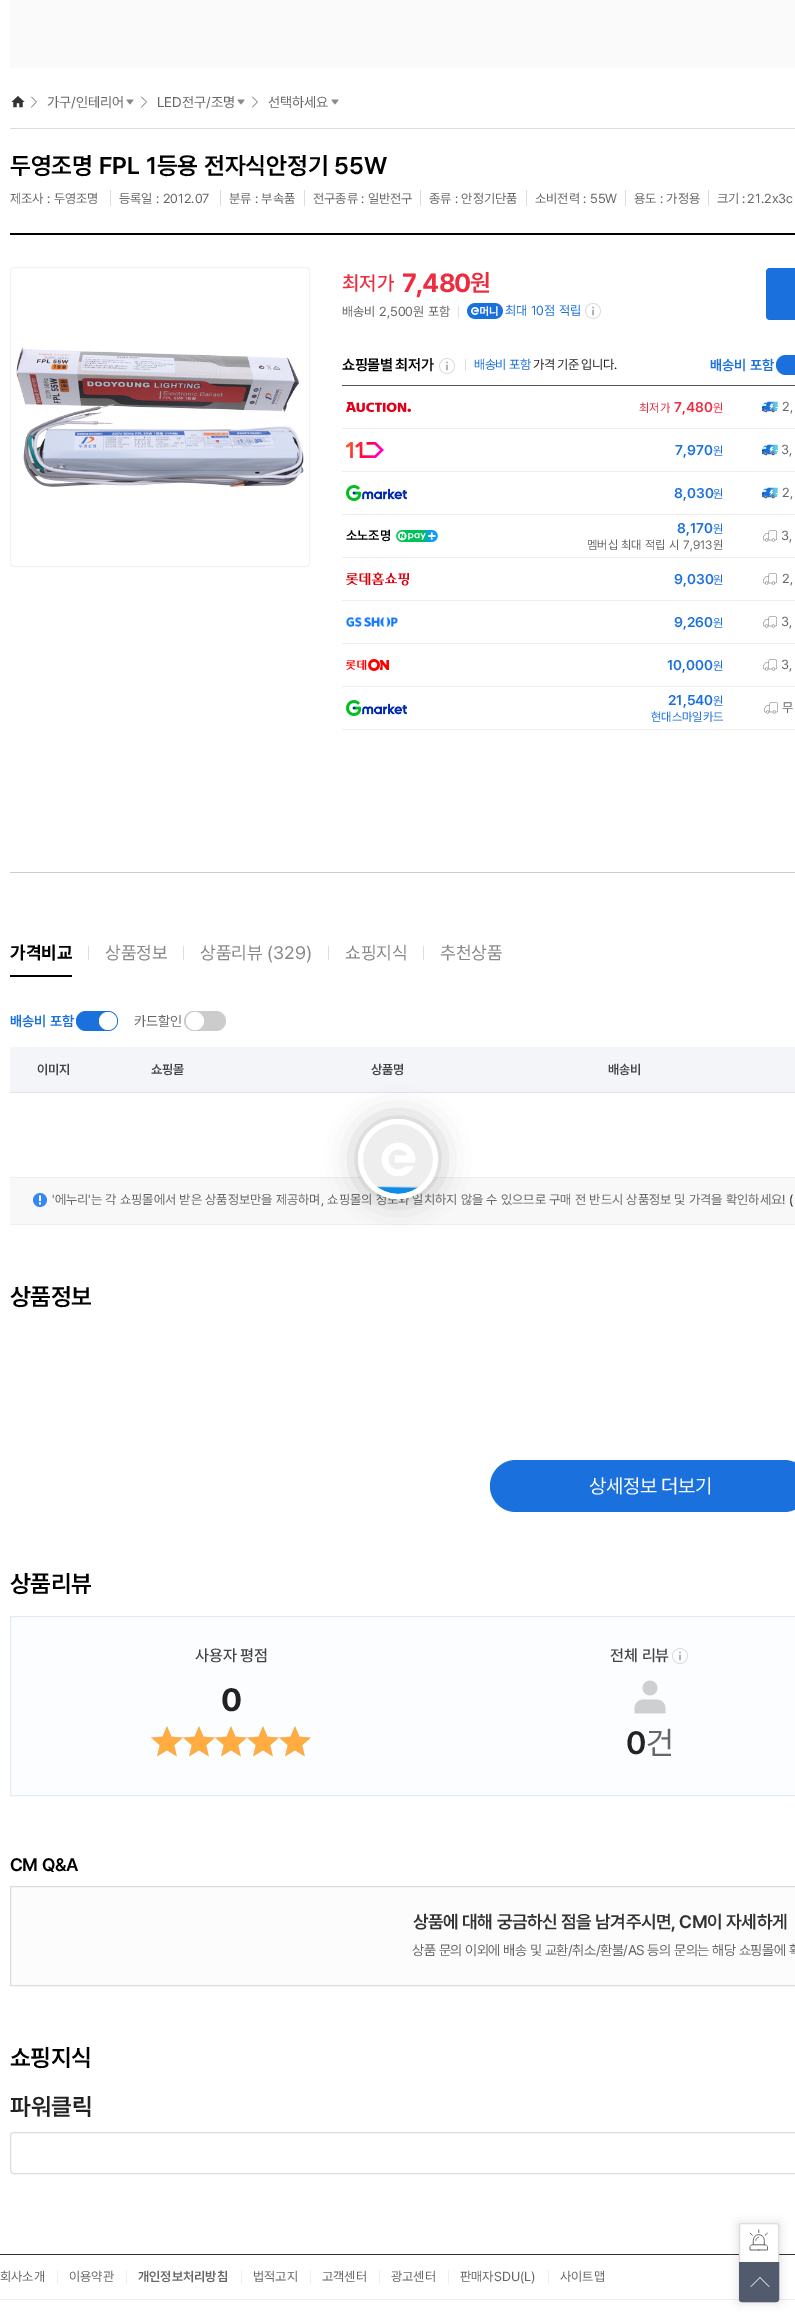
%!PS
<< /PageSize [795 2318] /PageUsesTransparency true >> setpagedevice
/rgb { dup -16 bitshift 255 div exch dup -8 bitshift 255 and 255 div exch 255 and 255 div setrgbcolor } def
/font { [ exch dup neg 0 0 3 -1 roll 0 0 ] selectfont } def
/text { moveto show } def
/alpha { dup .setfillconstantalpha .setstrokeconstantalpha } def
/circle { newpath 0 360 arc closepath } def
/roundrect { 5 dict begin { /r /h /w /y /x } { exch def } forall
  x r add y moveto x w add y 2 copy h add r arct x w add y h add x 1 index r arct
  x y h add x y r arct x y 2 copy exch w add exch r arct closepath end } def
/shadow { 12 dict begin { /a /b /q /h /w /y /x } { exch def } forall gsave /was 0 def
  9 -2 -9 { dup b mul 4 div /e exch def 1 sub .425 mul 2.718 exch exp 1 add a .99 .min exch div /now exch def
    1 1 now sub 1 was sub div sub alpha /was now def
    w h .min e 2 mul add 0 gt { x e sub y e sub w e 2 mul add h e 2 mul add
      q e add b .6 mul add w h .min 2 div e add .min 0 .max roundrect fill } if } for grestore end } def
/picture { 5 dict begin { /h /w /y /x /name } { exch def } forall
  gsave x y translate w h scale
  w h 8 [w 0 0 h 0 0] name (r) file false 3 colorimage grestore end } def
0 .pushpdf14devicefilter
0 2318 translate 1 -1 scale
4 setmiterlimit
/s1 { /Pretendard-Regular 14 font 16#666666 rgb } def
/s2 { /Pretendard-SemiBold 24 font 16#000000 rgb } def
/s3 { /Pretendard-Regular 13 font 16#666666 rgb } def
/s4 { /Pretendard-Medium 20 font 16#EE2C40 rgb } def
/s5 { /Pretendard-SemiBold 24 font 16#EE2C40 rgb } def
/s6 { /Pretendard-Regular 13 font 16#1A70DD rgb } def
/s7 { /Pretendard-SemiBold 14 font 16#1A70DD rgb } def
/s8 { /Pretendard-Regular 12 font 16#EE2C40 rgb } def
/s9 { /Pretendard-SemiBold 14 font 16#EE2C40 rgb } def
/s10 { /Pretendard-Regular 12 font 16#1A70DD rgb } def
/s11 { /Pretendard-SemiBold 13 font 16#000000 rgb } def
/s12 { /Pretendard-Regular 12 font 16#666666 rgb } def
/s13 { /Pretendard-Bold 18 font 16#000000 rgb } def
/s14 { /Pretendard-Regular 18 font 16#888888 rgb } def
/s15 { /Pretendard-SemiBold 13 font 16#444444 rgb } def
/s16 { /Pretendard-Regular 13 font 16#222222 rgb } def
/s17 { /Pretendard-Medium 16 font 16#444444 rgb } def
/s18 { /Pretendard-Bold 32 font 16#222222 rgb } def
/s19 { /Pretendard-SemiBold 32 font 16#222222 rgb } def
/s20 { /Pretendard-Regular 32 font 16#666666 rgb } def
/s21 { /Pretendard-SemiBold 24 font 16#222222 rgb } def
/s22 { /Pretendard-SemiBold 13 font 16#666666 rgb } def
16#FFFFFF rgb
0 0 795 2318 rectfill
16#FAFAFA rgb
10 0 785 68 rectfill
16#DDDDDD rgb
10 128 785 1 rectfill
(pic1.raw) 11 96 14 12 picture
(pic2.raw) 30 96 7 12 picture
s1
(가구/인테리어) 47 107 text
(pic3.raw) 126 99 8 6 picture
(pic2.raw) 140 96 7 12 picture
(LED전구/조명) 157 107 text
(pic3.raw) 237 99 8 6 picture
(pic2.raw) 251 96 7 12 picture
(선택하세요) 268 107 text
(pic3.raw) 331 99 8 6 picture
16#000000 rgb
10 233 785 2 rectfill
s2
(두영조명 FPL 1등용 전자식안정기 55W) 10 174 text
s3
(제조사 : 두영조명) 10 203 text
16#DDDDDD rgb
110 190 1 16 rectfill
s3
(등록일 : 2012.07) 119 203 text
16#DDDDDD rgb
220 190 1 16 rectfill
s3
(분류 : 부속품) 229 203 text
16#DDDDDD rgb
304 190 1 16 rectfill
s3
(전구종류 : 일반전구) 313 203 text
16#DDDDDD rgb
420 190 1 16 rectfill
s3
(종류 : 안정기단품) 429 203 text
16#DDDDDD rgb
526 190 1 16 rectfill
s3
(소비전력 : 55W) 535 203 text
16#DDDDDD rgb
625 190 1 16 rectfill
s3
(용도 : 가정용) 634 203 text
16#DDDDDD rgb
708 190 1 16 rectfill
16#666666 rgb
717 203 moveto -1 0 32 (크기 : 21.2x3c) widthshow
16#CCCCCC rgb
10 872 785 1 rectfill
(pic4.raw) 16 347 288 140 picture
16#F2F2F2 rgb
10.5 267.5 299 299 3.5 roundrect stroke
s4
(최저가) 342 290 text
/Pretendard-Bold 26 font
402 292 moveto -1 0 (7,480) ashow
s5
(원) 470 291 text
s3
(배송비 2,500원 포함) 342 316 text
16#DDDDDD rgb
458 306 1 12 rectfill
(pic5.raw) 467 303 36 16 picture
s6
(최대 10점 적립) 505 315 text
(pic6.raw) 585 303 16 16 picture
766 268 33 52 4 roundrect fill
/Pretendard-SemiBold 15 font
16#000000 rgb
342 370 moveto -0.4 0 (쇼핑몰별 최저가) ashow
(pic6.raw) 439 358 16 16 picture
16#DDDDDD rgb
465 359 1 12 rectfill
/Pretendard-Regular 13 font
16#1A70DD rgb
474 369 moveto -0.5 0 (배송비 포함) ashow
16#222222 rgb
533 369 moveto -0.5 0 (가격 기준 입니다.) ashow
s7
(배송비 포함) 710 370 text
776 355 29 20 10 roundrect fill
16#555555 rgb
342 385 453 1 rectfill
(pic7.raw) 346 402 65 10 picture
s8
(최저가) 639 412 text
s9
(7,480) 674 412 text
s8
(원) 713 412 text
16#EEEEEE rgb
342 428 453 1 rectfill
(pic8.raw) 762 401 16 12 picture
s3
(2,) 782 411 text
(pic9.raw) 346 442 38 16 picture
s7
(7,970) 675 455 text
s10
(원) 713 455 text
16#EEEEEE rgb
342 471 453 1 rectfill
(pic8.raw) 762 444 16 12 picture
s3
(3,) 781 454 text
(pic10.raw) 346 485 61 16 picture
s7
(8,030) 674 498 text
s10
(원) 713 498 text
16#EEEEEE rgb
342 514 453 1 rectfill
(pic8.raw) 762 487 16 12 picture
s3
(2,) 782 497 text
s11
(소노조명) 346 540 text
(pic11.raw) 396 530 42 12 picture
s7
(8,170) 677 533 text
s10
(원) 713 533 text
s12
(멤버십 최대 적립 시) 587 549 text
(7,913원) 683 549 text
16#EEEEEE rgb
342 557 453 1 rectfill
(pic12.raw) 763 530 14 12 picture
s3
(3,) 781 540 text
(pic13.raw) 346 572 63 14 picture
s7
(9,030) 674 584 text
s10
(원) 713 584 text
16#EEEEEE rgb
342 600 453 1 rectfill
(pic12.raw) 763 573 14 12 picture
s3
(2,) 782 583 text
(pic14.raw) 346 617 52 10 picture
s7
(9,260) 674 627 text
s10
(원) 713 627 text
16#EEEEEE rgb
342 643 453 1 rectfill
(pic12.raw) 763 616 14 12 picture
s3
(3,) 781 626 text
(pic15.raw) 346 659 43 12 picture
s7
(10,000) 667 670 text
s10
(원) 713 670 text
16#EEEEEE rgb
342 686 453 1 rectfill
(pic12.raw) 763 659 14 12 picture
s3
(3,) 781 669 text
(pic10.raw) 346 700 61 16 picture
s7
(21,540) 668 705 text
s10
(원) 713 705 text
(현대스마일카드) 651 721 text
16#EEEEEE rgb
342 729 453 1 rectfill
(pic12.raw) 764 702 14 12 picture
s3
(무) 782 712 text
s13
(가격비교) 10 959 text
10 975 62 2 rectfill
16#DDDDDD rgb
88 946 1 14 rectfill
s14
(상품정보) 105 959 text
16#DDDDDD rgb
183 946 1 14 rectfill
s14
(상품리뷰 \(329\)) 200 959 text
16#DDDDDD rgb
328 946 1 14 rectfill
s14
(쇼핑지식) 345 959 text
16#DDDDDD rgb
423 946 1 14 rectfill
s14
(추천상품) 440 959 text
16#1A70DD rgb
76 1011 42 20 10 roundrect fill
s7
(배송비 포함) 10 1026 text
16#FFFFFF rgb
108 1021 9 circle fill
16#CCCCCC rgb
184 1011 42 20 10 roundrect fill
s1
(카드할인) 134 1026 text
16#FFFFFF rgb
195 1021 9 circle fill
16#F4F5F9 rgb
10 1047 785 45 rectfill
s15
(이미지) 37 1074 text
(쇼핑몰) 151 1074 text
(상품명) 371 1074 text
(배송비) 608 1074 text
16#DFE3E9 rgb
10 1092 785 1 rectfill
16#F8F8F8 rgb
10 1178 785 46 rectfill
16#EEEEEE rgb
10 1177 785 1 rectfill
10 1224 785 1 rectfill
(pic16.raw) 33 1193 14 14 picture
s3
('에누리'는 각 쇼핑몰에서 받은 상품정보만을 제공하며, 쇼핑몰의 정보와 일치하지 않을 수 있으므로 구매 전 반드시 상품정보 및 가격을 확인하세요!) 52 1204 text
s16
(\() 789 1204 text
/Pretendard-SemiBold 24 font
16#000000 rgb
10 1305 moveto -0.4 0 (상품정보) ashow
16#1A70DD rgb
490 1460 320 52 26 roundrect fill
/Pretendard-Regular 20 font
16#FFFFFF rgb
589 1493 moveto -0.4 0 (상세정보 더보기) ashow
/Pretendard-SemiBold 24 font
16#000000 rgb
10 1592 moveto -0.4 0 (상품리뷰) ashow
16#FCFDFF rgb
10.5 1616.5 moveto 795.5 1616.5 lineto 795.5 1795.5 lineto 10.5 1795.5 lineto closepath gsave fill grestore
16#E4EBF6 rgb
stroke
s17
(사용자 평점) 195 1661 text
s18
(0) 221 1711 text
(pic17.raw) 151 1726 160 31 picture
(pic18.raw) 151 1726 160 31 picture
s17
(전체 리뷰) 610 1661 text
(pic19.raw) 672 1648 16 16 picture
(pic20.raw) 634 1680 32 34 picture
s19
(0) 626 1754 text
s20
(건) 646 1754 text
/Pretendard-SemiBold 18 font
16#000000 rgb
10 1871 moveto -0.4 0 (CM Q&A) ashow
16#FCFCFC rgb
11 1887 784 98 rectfill
16#DDDDDD rgb
10.5 1886.5 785 99 rectstroke
16#333333 rgb
413 1928 moveto -0.4 0 (상품에 대해 궁금하신 점을 남겨주시면, CM이 자세하게) ashow
/Pretendard-Regular 14 font
16#666666 rgb
412 1955 moveto -0.4 0 (상품 문의 이외에 배송 및 교환/취소/환불/AS 등의 문의는 해당 쇼핑몰에 확) ashow
/Pretendard-SemiBold 24 font
16#000000 rgb
10 2066 moveto -0.4 0 (쇼핑지식) ashow
s21
(파워클릭) 10 2115 text
16#DDDDDD rgb
10.5 2132.5 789 41 3.5 roundrect stroke
16#333333 rgb
0 2254 795 1 rectfill
16#EEEEEE rgb
0 2299 795 1 rectfill
16#000000 rgb
739 2224 40 78 0 5 0.15 shadow
16#FFFFFF rgb
742 2223.5 moveto 776 2223.5 lineto 777.5 2223.5 778.5 2224.5 778.5 2226 curveto 778.5 2262.5 lineto 739.5 2262.5 lineto 739.5 2226 lineto 739.5 2224.5 740.5 2223.5 742 2223.5 curveto closepath gsave fill grestore
16#DDDDDD rgb
stroke
(pic21.raw) 749 2229 20 22 picture
16#515B6D rgb
739.5 2262.5 moveto 778.5 2262.5 lineto 778.5 2299 lineto 778.5 2300.5 777.5 2301.5 776 2301.5 curveto 742 2301.5 lineto 740.5 2301.5 739.5 2300.5 739.5 2299 curveto closepath gsave fill grestore
stroke
(pic22.raw) 750 2277 20 10 picture
16#000000 rgb
358 1119 80 80 40 15 0.25 shadow
16#EEEEEE rgb
398 1159 40 circle fill
(pic23.raw) 376 1142 44 52 picture
16#FFFFFF rgb
5 setlinewidth
398 1159 37.5 circle stroke
s3
(회사소개) 0 2281 text
16#EEEEEE rgb
57 2270 1 14 rectfill
s3
(이용약관) 69 2281 text
16#EEEEEE rgb
126 2270 1 14 rectfill
s22
(개인정보처리방침) 138 2281 text
16#EEEEEE rgb
241 2270 1 14 rectfill
s3
(법적고지) 253 2281 text
16#EEEEEE rgb
310 2270 1 14 rectfill
s3
(고객센터) 322 2281 text
16#EEEEEE rgb
379 2270 1 14 rectfill
s3
(광고센터) 391 2281 text
16#EEEEEE rgb
448 2270 1 14 rectfill
s3
(판매자SDU\(L\)) 460 2281 text
16#EEEEEE rgb
548 2270 1 14 rectfill
s3
(사이트맵) 560 2281 text
.poppdf14devicefilter showpage
